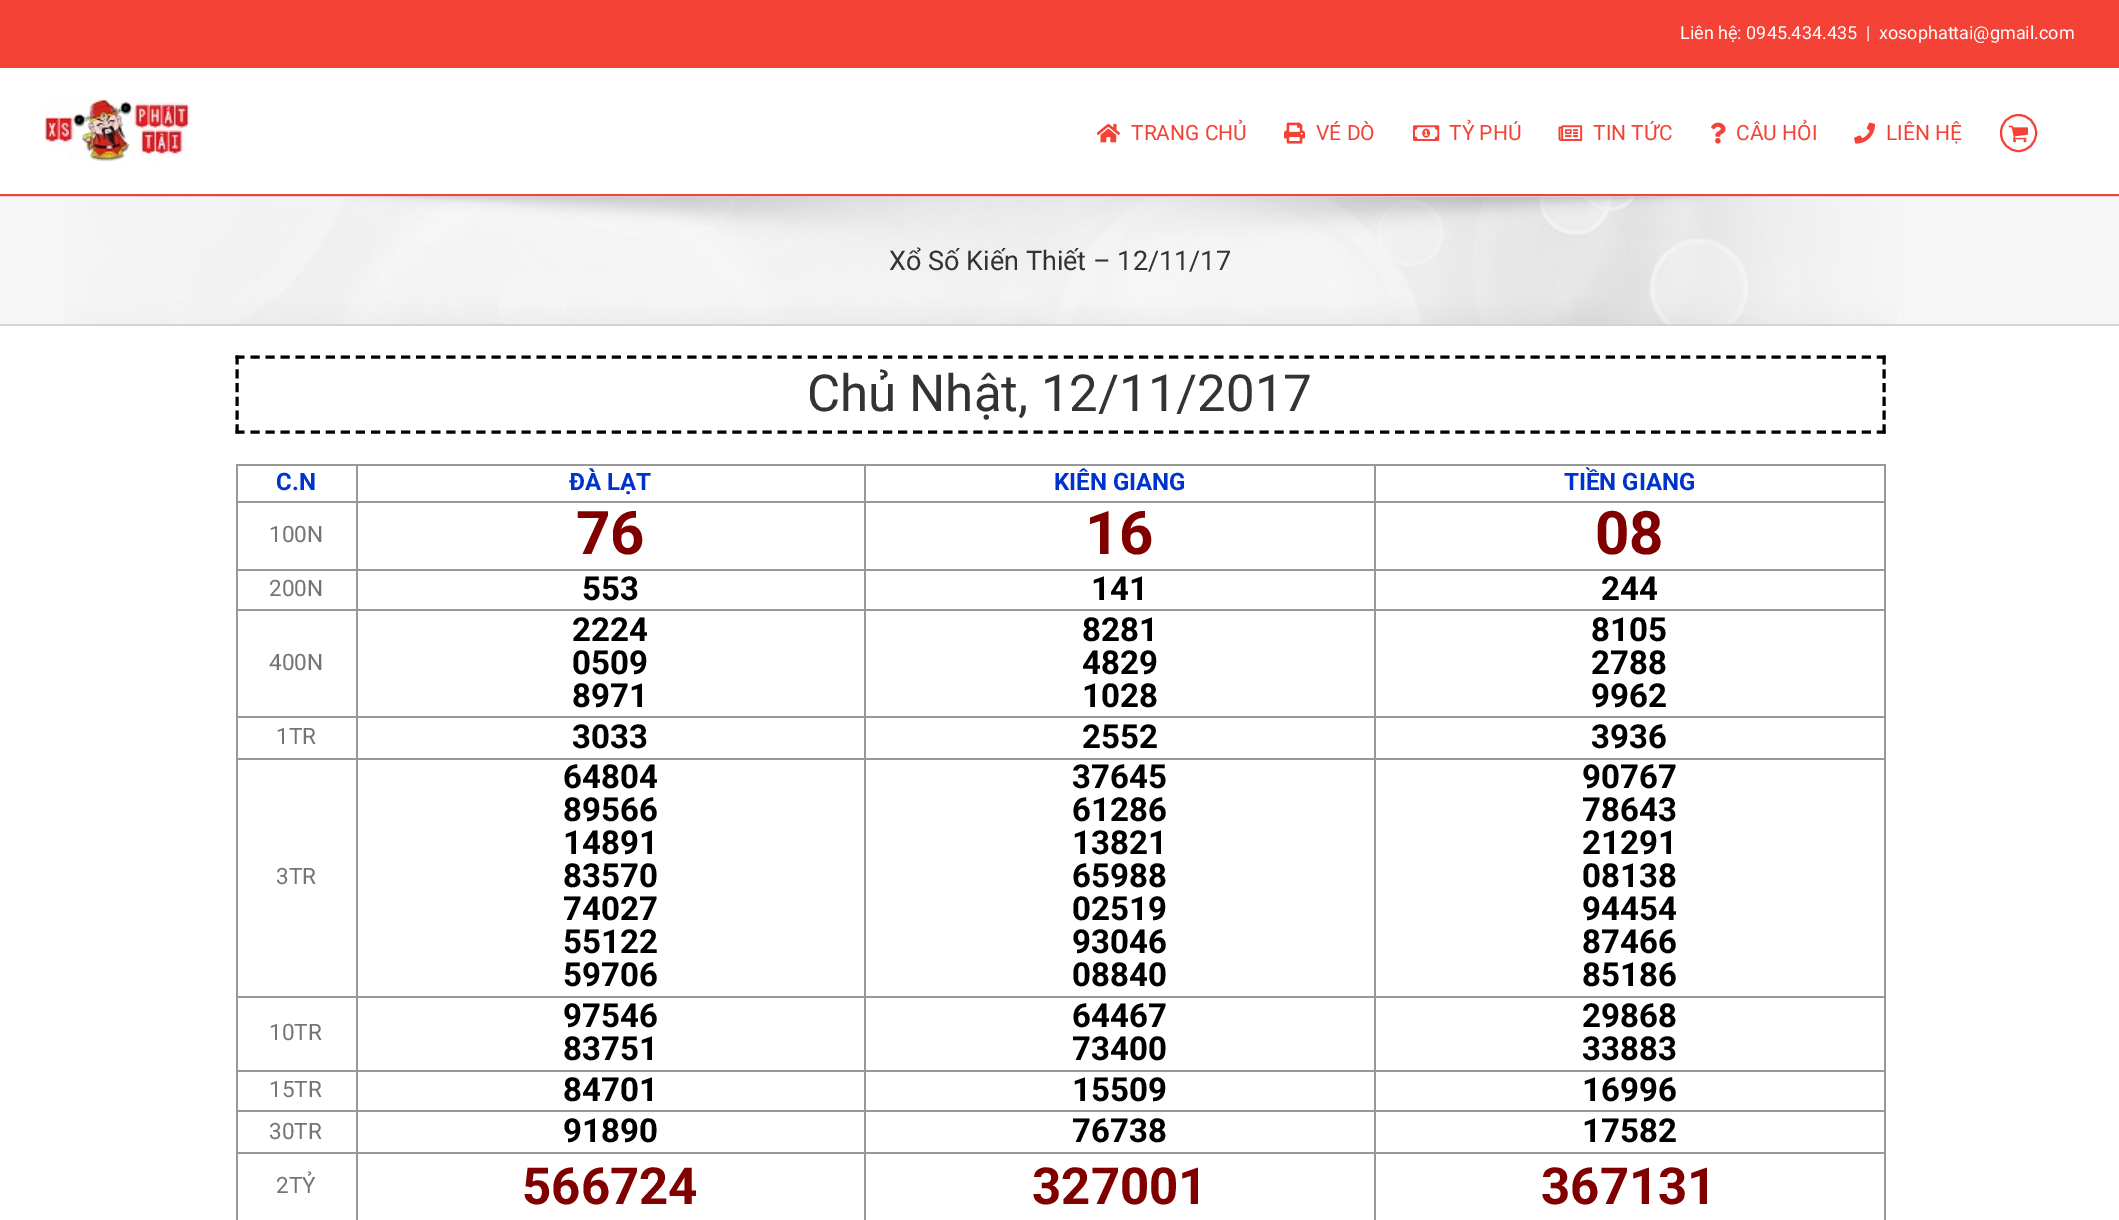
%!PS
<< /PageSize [2119 1220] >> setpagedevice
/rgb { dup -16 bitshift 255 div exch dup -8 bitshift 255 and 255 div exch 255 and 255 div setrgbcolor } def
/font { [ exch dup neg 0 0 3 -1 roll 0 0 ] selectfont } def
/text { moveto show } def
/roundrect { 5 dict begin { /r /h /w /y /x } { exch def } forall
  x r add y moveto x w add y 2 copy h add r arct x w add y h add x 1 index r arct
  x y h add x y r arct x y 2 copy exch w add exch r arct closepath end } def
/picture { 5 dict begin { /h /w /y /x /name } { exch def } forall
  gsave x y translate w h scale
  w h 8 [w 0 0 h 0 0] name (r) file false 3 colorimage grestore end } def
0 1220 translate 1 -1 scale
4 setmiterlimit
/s1 { /Roboto-Regular 18 font 16#FFFFFF rgb } def
/s2 { /Roboto-Regular 21 font 16#F44336 rgb } def
/s3 { /Roboto-Regular 27 font 16#333333 rgb } def
/s4 { /Roboto-Regular 51 font 16#333333 rgb } def
/s5 { /Roboto-Bold 24 font 16#0033CC rgb } def
/s6 { /Roboto-Regular 22.5 font 16#747474 rgb } def
/s7 { /Roboto-Bold 60 font 16#800000 rgb } def
/s8 { /Roboto-Bold 33 font 16#000000 rgb } def
/s9 { /Roboto-Bold 51 font 16#800000 rgb } def
16#FFFFFF rgb
0 0 2119 1220 rectfill
16#F44336 rgb
0 0 2119 68 rectfill
s1
(Liên hệ: 0945.434.435) 1680 39 text
(|) 1866 39 text
(xosophattai@gmail.com) 1879 39 text
16#F44336 rgb
0 194 2119 2 rectfill
(pic1.raw) 45 97 146 65 picture
(pic2.raw) 1097 123 24 20 picture
s2
(TRANG CHỦ) 1131 140 text
(pic3.raw) 1284 122 21 22 picture
(VÉ DÒ) 1316 140 text
(pic4.raw) 1413 125 27 16 picture
(TỶ PHÚ) 1449 140 text
(pic5.raw) 1558 125 25 16 picture
(TIN TỨC) 1593 140 text
(pic6.raw) 1711 122 15 22 picture
(CÂU HỎI) 1736 140 text
(pic7.raw) 1854 122 21 22 picture
(LIÊN HỆ) 1886 140 text
2 setlinewidth
2001 115 35 36 17.5 roundrect stroke
(pic8.raw) 2008 125 20 18 picture
16#F6F6F6 rgb
0 197 2119 127 rectfill
(pic9.raw) 64 197 1833 127 picture
16#D2D3D4 rgb
0 196 2119 1 rectfill
0 324 2119 2 rectfill
s3
(Xổ Số Kiến Thiết – 12/11/17) 889 270 text
16#000000 rgb
3 setlinewidth
[9 6.06] 0 setdash
235.5 357 moveto 1885.5 357 lineto stroke
[9 4.8] 0 setdash
1884 355.5 moveto 1884 433.5 lineto stroke
[9 6.06] 0 setdash
235.5 432 moveto 1885.5 432 lineto stroke
[9 4.8] 0 setdash
237 355.5 moveto 237 433.5 lineto stroke
s4
(Chủ Nhật, 12/11/2017) 807 411 text
16#999999 rgb
1374 464 512 2 rectfill
1374 501 512 2 rectfill
1374 569 512 2 rectfill
1374 609 512 2 rectfill
1374 716 512 2 rectfill
1374 758 512 2 rectfill
1374 996 512 2 rectfill
1374 1070 512 2 rectfill
1374 1110 512 2 rectfill
1374 1152 512 2 rectfill
1374 1152 2 68 rectfill
864 1152 512 2 rectfill
1374 1110 2 44 rectfill
864 1110 512 2 rectfill
1374 1070 2 42 rectfill
864 1070 512 2 rectfill
1374 996 2 75 rectfill
864 996 512 2 rectfill
1374 758 2 240 rectfill
864 758 512 2 rectfill
1374 716 2 43 rectfill
864 716 512 2 rectfill
1374 609 2 108 rectfill
864 609 512 2 rectfill
1374 569 2 42 rectfill
864 569 512 2 rectfill
1374 501 2 69 rectfill
864 501 512 2 rectfill
1374 464 2 39 rectfill
864 464 512 2 rectfill
864 1152 2 68 rectfill
356 1152 510 2 rectfill
864 1110 2 44 rectfill
356 1110 510 2 rectfill
864 1070 2 42 rectfill
356 1070 510 2 rectfill
864 996 2 75 rectfill
356 996 510 2 rectfill
864 758 2 240 rectfill
356 758 510 2 rectfill
864 716 2 43 rectfill
356 716 510 2 rectfill
864 609 2 108 rectfill
356 609 510 2 rectfill
864 569 2 42 rectfill
356 569 510 2 rectfill
864 501 2 69 rectfill
356 501 510 2 rectfill
864 464 2 39 rectfill
356 464 510 2 rectfill
356 1152 2 68 rectfill
236 1152 121 2 rectfill
356 1110 2 44 rectfill
236 1110 121 2 rectfill
356 1070 2 42 rectfill
236 1070 121 2 rectfill
356 996 2 75 rectfill
236 996 121 2 rectfill
356 758 2 240 rectfill
236 758 121 2 rectfill
356 716 2 43 rectfill
236 716 121 2 rectfill
356 609 2 108 rectfill
236 609 121 2 rectfill
356 569 2 42 rectfill
236 569 121 2 rectfill
356 501 2 69 rectfill
236 501 121 2 rectfill
356 464 2 39 rectfill
236 464 121 2 rectfill
236 1152 2 68 rectfill
236 1110 2 44 rectfill
236 1070 2 42 rectfill
236 996 2 75 rectfill
236 758 2 240 rectfill
236 716 2 43 rectfill
236 609 2 108 rectfill
236 569 2 42 rectfill
236 501 2 69 rectfill
236 464 2 39 rectfill
s5
(C.N) 276 490 text
(ĐÀ LẠT) 569 490 text
(KIÊN GIANG) 1054 490 text
16#999999 rgb
1884 1152 2 68 rectfill
1884 1110 2 44 rectfill
1884 1070 2 42 rectfill
1884 996 2 75 rectfill
1884 758 2 240 rectfill
1884 716 2 43 rectfill
1884 609 2 108 rectfill
1884 569 2 42 rectfill
1884 501 2 69 rectfill
1884 464 2 39 rectfill
s5
(TIỀN GIANG) 1564 490 text
s6
(100N) 269 542 text
s7
(76) 576 554 text
(16) 1085 554 text
(08) 1595 554 text
s6
(200N) 269 596 text
s8
(553) 582 600 text
(141) 1091 600 text
(244) 1601 600 text
s6
(400N) 269 670 text
s8
(2224) 572 641 text
(0509) 572 674 text
(8971) 572 707 text
(8281) 1082 641 text
(4829) 1082 674 text
(1028) 1082 707 text
(8105) 1591 641 text
(2788) 1591 674 text
(9962) 1591 707 text
s6
(1TR) 276 744 text
s8
(3033) 572 748 text
(2552) 1082 748 text
(3936) 1591 748 text
s6
(3TR) 276 884 text
s8
(64804) 563 788 text
(89566) 563 821 text
(14891) 563 854 text
(83570) 563 887 text
(74027) 563 920 text
(55122) 563 953 text
(59706) 563 986 text
(37645) 1072 788 text
(61286) 1072 821 text
(13821) 1072 854 text
(65988) 1072 887 text
(02519) 1072 920 text
(93046) 1072 953 text
(08840) 1072 986 text
(90767) 1582 788 text
(78643) 1582 821 text
(21291) 1582 854 text
(08138) 1582 887 text
(94454) 1582 920 text
(87466) 1582 953 text
(85186) 1582 986 text
s6
(10TR) 269 1040 text
s8
(97546) 563 1027 text
(83751) 563 1060 text
(64467) 1072 1027 text
(73400) 1072 1060 text
(29868) 1582 1027 text
(33883) 1582 1060 text
s6
(15TR) 269 1097 text
s8
(84701) 563 1101 text
(15509) 1072 1101 text
(16996) 1582 1101 text
s6
(30TR) 269 1139 text
s8
(91890) 563 1142 text
(76738) 1072 1142 text
(17582) 1582 1142 text
s6
(2TỶ) 276 1193 text
s9
(566724) 522 1204 text
(327001) 1032 1204 text
(367131) 1541 1204 text
showpage
